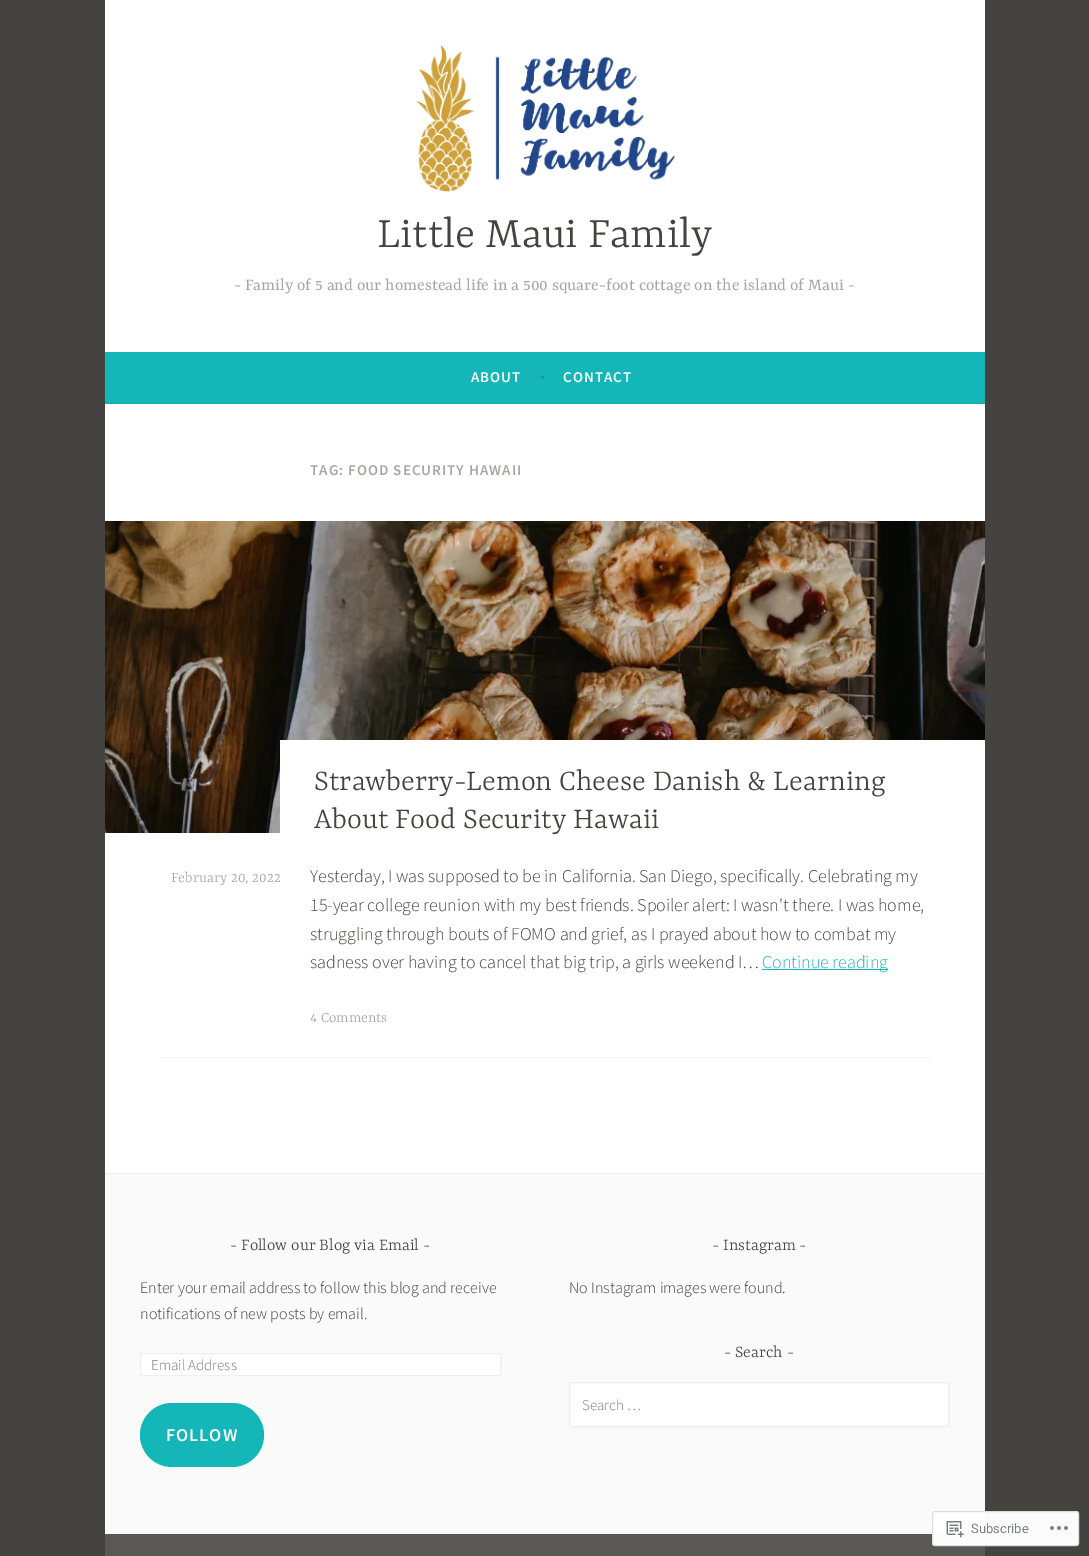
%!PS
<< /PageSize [1089 1556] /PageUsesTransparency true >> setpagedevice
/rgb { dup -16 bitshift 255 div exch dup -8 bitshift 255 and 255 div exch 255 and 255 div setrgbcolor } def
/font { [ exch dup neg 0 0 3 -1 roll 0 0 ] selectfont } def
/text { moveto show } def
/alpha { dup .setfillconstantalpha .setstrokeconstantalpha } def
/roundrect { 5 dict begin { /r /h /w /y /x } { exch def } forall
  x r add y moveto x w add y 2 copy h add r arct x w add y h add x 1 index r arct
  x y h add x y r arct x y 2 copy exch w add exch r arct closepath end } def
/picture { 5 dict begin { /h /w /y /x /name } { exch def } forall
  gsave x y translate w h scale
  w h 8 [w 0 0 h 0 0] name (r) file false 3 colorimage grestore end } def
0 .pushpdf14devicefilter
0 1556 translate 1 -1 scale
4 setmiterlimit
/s1 { /Yrsa-Light 47 font 16#444340 rgb } def
/s2 { /Yrsa-Regular 18 font 16#A8A6A1 rgb } def
/s3 { /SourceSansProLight-Light 18 font 16#129B9C rgb } def
/s4 { /Yrsa-Light 32 font 16#444340 rgb } def
/s5 { /Yrsa-Light 16 font 16#A8A6A1 rgb } def
/s6 { /SourceSansProLight-Light 18 font 16#444340 rgb } def
/s7 { /SourceSansProLight-Light 18 font 16#15B6B8 rgb } def
/s8 { /Yrsa-Light 18 font 16#444340 rgb } def
/s9 { /SourceSansProLight-Light 16 font 16#444340 rgb } def
/s10 { /SourceSansProLight-Light 15 font 16#757575 rgb } def
/s11 { /Roboto-Regular 13 font 16#7B7F84 rgb } def
16#444340 rgb
0 0 1089 1556 rectfill
16#FFFFFF rgb
105 0 880 352 rectfill
(pic1.raw) 416 45 260 148 picture
s1
(Little Maui Family) 377 247 text
s2
(- Family of 5 and our homestead life in a 500 square-foot cottage on the island of Maui -) 234 290 text
16#15B6B8 rgb
105 352 880 50 rectfill
16#14B1B2 rgb
105 402 880 2 rectfill
/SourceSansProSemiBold-SemiBold 15 font
16#FFFFFF rgb
471 382 moveto 1 0 (ABOUT) ashow
s3
(•) 540 382 text
/SourceSansProSemiBold-SemiBold 15 font
16#FFFFFF rgb
563 382 moveto 1 0 (CONTACT) ashow
105 404 880 769 rectfill
16#A8A6A1 rgb
310 475 moveto 1 0 (TAG: FOOD SECURITY HAWAII) ashow
(pic2.raw) 105 521 880 312 picture
16#FFFFFF rgb
280 740 705 93 rectfill
s4
(Strawberry-Lemon Cheese Danish & Learning) 314 790 text
(About Food Security Hawaii) 314 828 text
s5
(February 20, 2022) 171 882 text
s6
(Yesterday, I was supposed to be in California. San Diego, specifically. Celebrating my) 310 882 text
(15-year college reunion with my best friends. Spoiler alert: I wasn't there. I was home,) 310 911 text
(struggling through bouts of FOMO and grief, as I prayed about how to combat my) 310 940 text
(sadness over having to cancel that big trip, a girls weekend I…) 310 968 text
16#15B6B8 rgb
762 969 126 1 rectfill
(Continue reading) 762 968 text
s5
(4 Comments) 310 1022 text
16#F2F2F2 rgb
160 1057 770 1 rectfill
16#FAFAFA rgb
105 1174 880 360 rectfill
16#EEEEEE rgb
105 1173 880 1 rectfill
s8
(- Follow our Blog via Email -) 230 1250 text
s9
(Enter your email address to follow this blog and receive) 140 1293 text
(notifications of new posts by email.) 140 1319 text
16#FFFFFF rgb
140.5 1353.5 360 22 1.5 roundrect gsave fill grestore
16#EEEEEE rgb
stroke
s10
(Email Address) 151 1370 text
16#15B6B8 rgb
140 1403 124 64 32 roundrect fill
/SourceSansProSemiBold-SemiBold 18 font
16#FFFFFF rgb
166 1441 moveto 1 0 (FOLLOW) ashow
s8
(- Instagram -) 712 1250 text
s9
(No Instagram images were found.) 569 1293 text
s8
(- Search -) 724 1357 text
16#FFFFFF rgb
569.5 1382.5 379 44 1.5 roundrect gsave fill grestore
16#EEEEEE rgb
stroke
s10
(Search …) 582 1410 text
16#595854 rgb
105 1534 880 22 rectfill
0.98 alpha
16#FFFFFF rgb
932 1511 147 35 3 roundrect fill
16#DCDCDE rgb
932.5 1511.5 146 34 2.5 roundrect stroke
1 alpha
(pic3.raw) 946 1521 18 17 picture
s11
(Subscribe) 971 1533 text
(pic4.raw) 1050 1526 18 4 picture
.poppdf14devicefilter showpage
